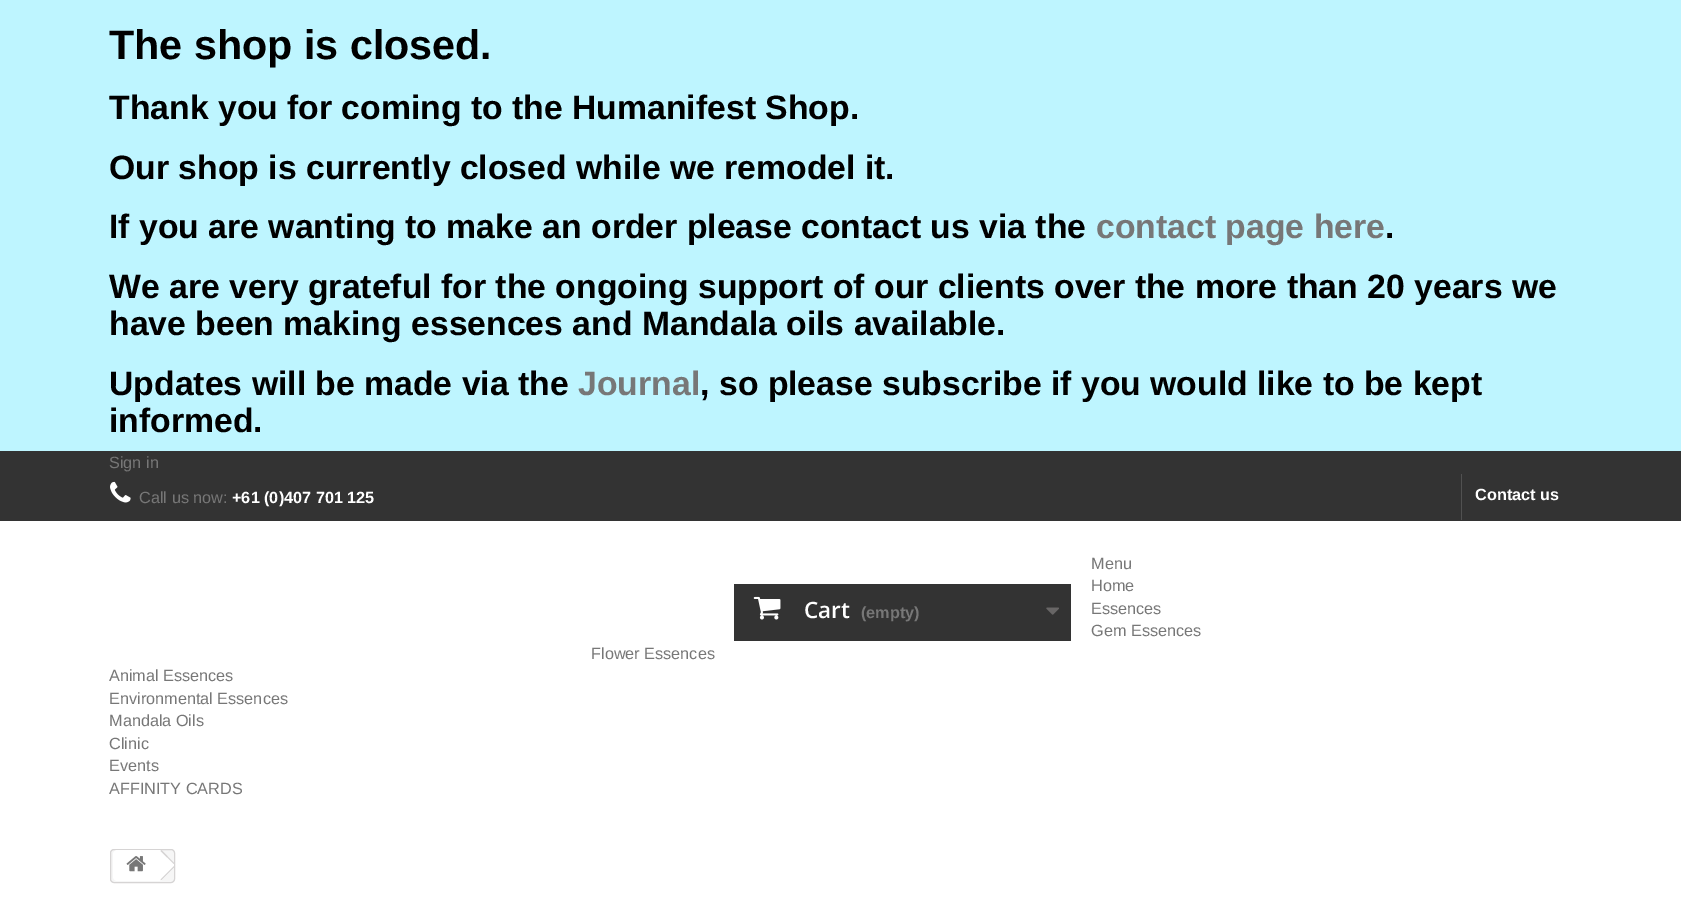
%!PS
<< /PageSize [1681 897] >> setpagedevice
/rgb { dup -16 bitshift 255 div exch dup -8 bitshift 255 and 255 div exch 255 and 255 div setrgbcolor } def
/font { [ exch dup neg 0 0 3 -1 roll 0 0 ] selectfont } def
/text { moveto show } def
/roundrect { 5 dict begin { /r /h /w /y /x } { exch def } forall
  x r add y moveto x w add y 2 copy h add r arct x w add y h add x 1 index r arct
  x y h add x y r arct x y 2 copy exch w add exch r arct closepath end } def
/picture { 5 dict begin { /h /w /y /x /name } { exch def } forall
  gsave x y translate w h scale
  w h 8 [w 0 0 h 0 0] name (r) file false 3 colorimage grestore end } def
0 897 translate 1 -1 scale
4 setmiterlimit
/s1 { /LiberationSans-Bold 41.25 font 16#000000 rgb } def
/s2 { /LiberationSans-Bold 33.75 font 16#000000 rgb } def
/s3 { /LiberationSans-Bold 33.75 font 16#777777 rgb } def
/s4 { /LiberationSans-Regular 16.25 font 16#777777 rgb } def
/s5 { /LiberationSans-Bold 16.25 font 16#FFFFFF rgb } def
/s6 { /OpenSans-SemiBold 22.5 font 16#FFFFFF rgb } def
/s7 { /LiberationSans-Bold 16.25 font 16#777777 rgb } def
16#FFFFFF rgb
0 0 1681 897 rectfill
16#BEF5FF rgb
0 0 1681 451 rectfill
s1
(The shop is closed.) 109 59 text
s2
(Thank you for coming to the Humanifest Shop.) 109 119 text
(Our shop is currently closed while we remodel it.) 109 179 text
(If you are wanting to make an order please contact us via the) 109 238 text
s3
(contact page here) 1096 238 text
s2
(.) 1385 238 text
(We are very grateful for the ongoing support of our clients over the more than 20 years we) 109 298 text
(have been making essences and Mandala oils available.) 109 335 text
(Updates will be made via the) 109 395 text
s3
(Journal) 578 395 text
s2
(, so please subscribe if you would like to be kept) 700 395 text
(informed.) 109 432 text
16#333333 rgb
0 451 1681 70 rectfill
s4
(Sign in) 109 468 text
(pic1.raw) 110 481 21 22 picture
(Call us now:) 139 503 text
s5
(+61 \(0\)407 701 125) 232 503 text
16#515151 rgb
1461 474 1 46 rectfill
s5
(Contact us) 1475 500 text
s4
(Menu) 1091 569 text
(Home) 1091 591 text
(Essences) 1091 614 text
(Gem Essences) 1091 636 text
(Flower Essences) 591 659 text
(Animal Essences) 109 681 text
(Environmental Essences) 109 704 text
(Mandala Oils) 109 726 text
(Clinic) 109 749 text
(Events) 109 771 text
(AFFINITY CARDS) 109 794 text
16#333333 rgb
734 584 337 57 rectfill
(pic2.raw) 753 596 28 24 picture
s6
(Cart) 804 618 text
s7
(\(empty\)) 861 618 text
(pic3.raw) 1046 607 13 8 picture
16#F6F6F6 rgb
110.5 849.5 64 33 3.5 roundrect gsave fill grestore
16#D6D4D4 rgb
stroke
16#FFFFFF rgb
117 850 moveto 160 850 lineto 160 881 lineto 117 881 lineto 115 881 113 879 113 877 curveto 113 854 lineto 113 852 115 850 117 850 curveto closepath fill
162.5 851 moveto 174 862.5 lineto 174 868 lineto 162.5 879.5 lineto 161.5 880.5 160 880.5 159 879.5 curveto 146.5 867 lineto 145.5 866 145.5 864.5 146.5 863.5 curveto 159 851 lineto 160 850 161.5 850 162.5 851 curveto closepath fill
(pic4.raw) 126 856 20 16 picture
16#D6D4D4 rgb
161.5 850 moveto 174 863 lineto 174 864 lineto 160.5 851 lineto closepath 174 866 moveto 174 867.5 lineto 161.5 880 lineto 160.5 879.5 lineto closepath fill
showpage
